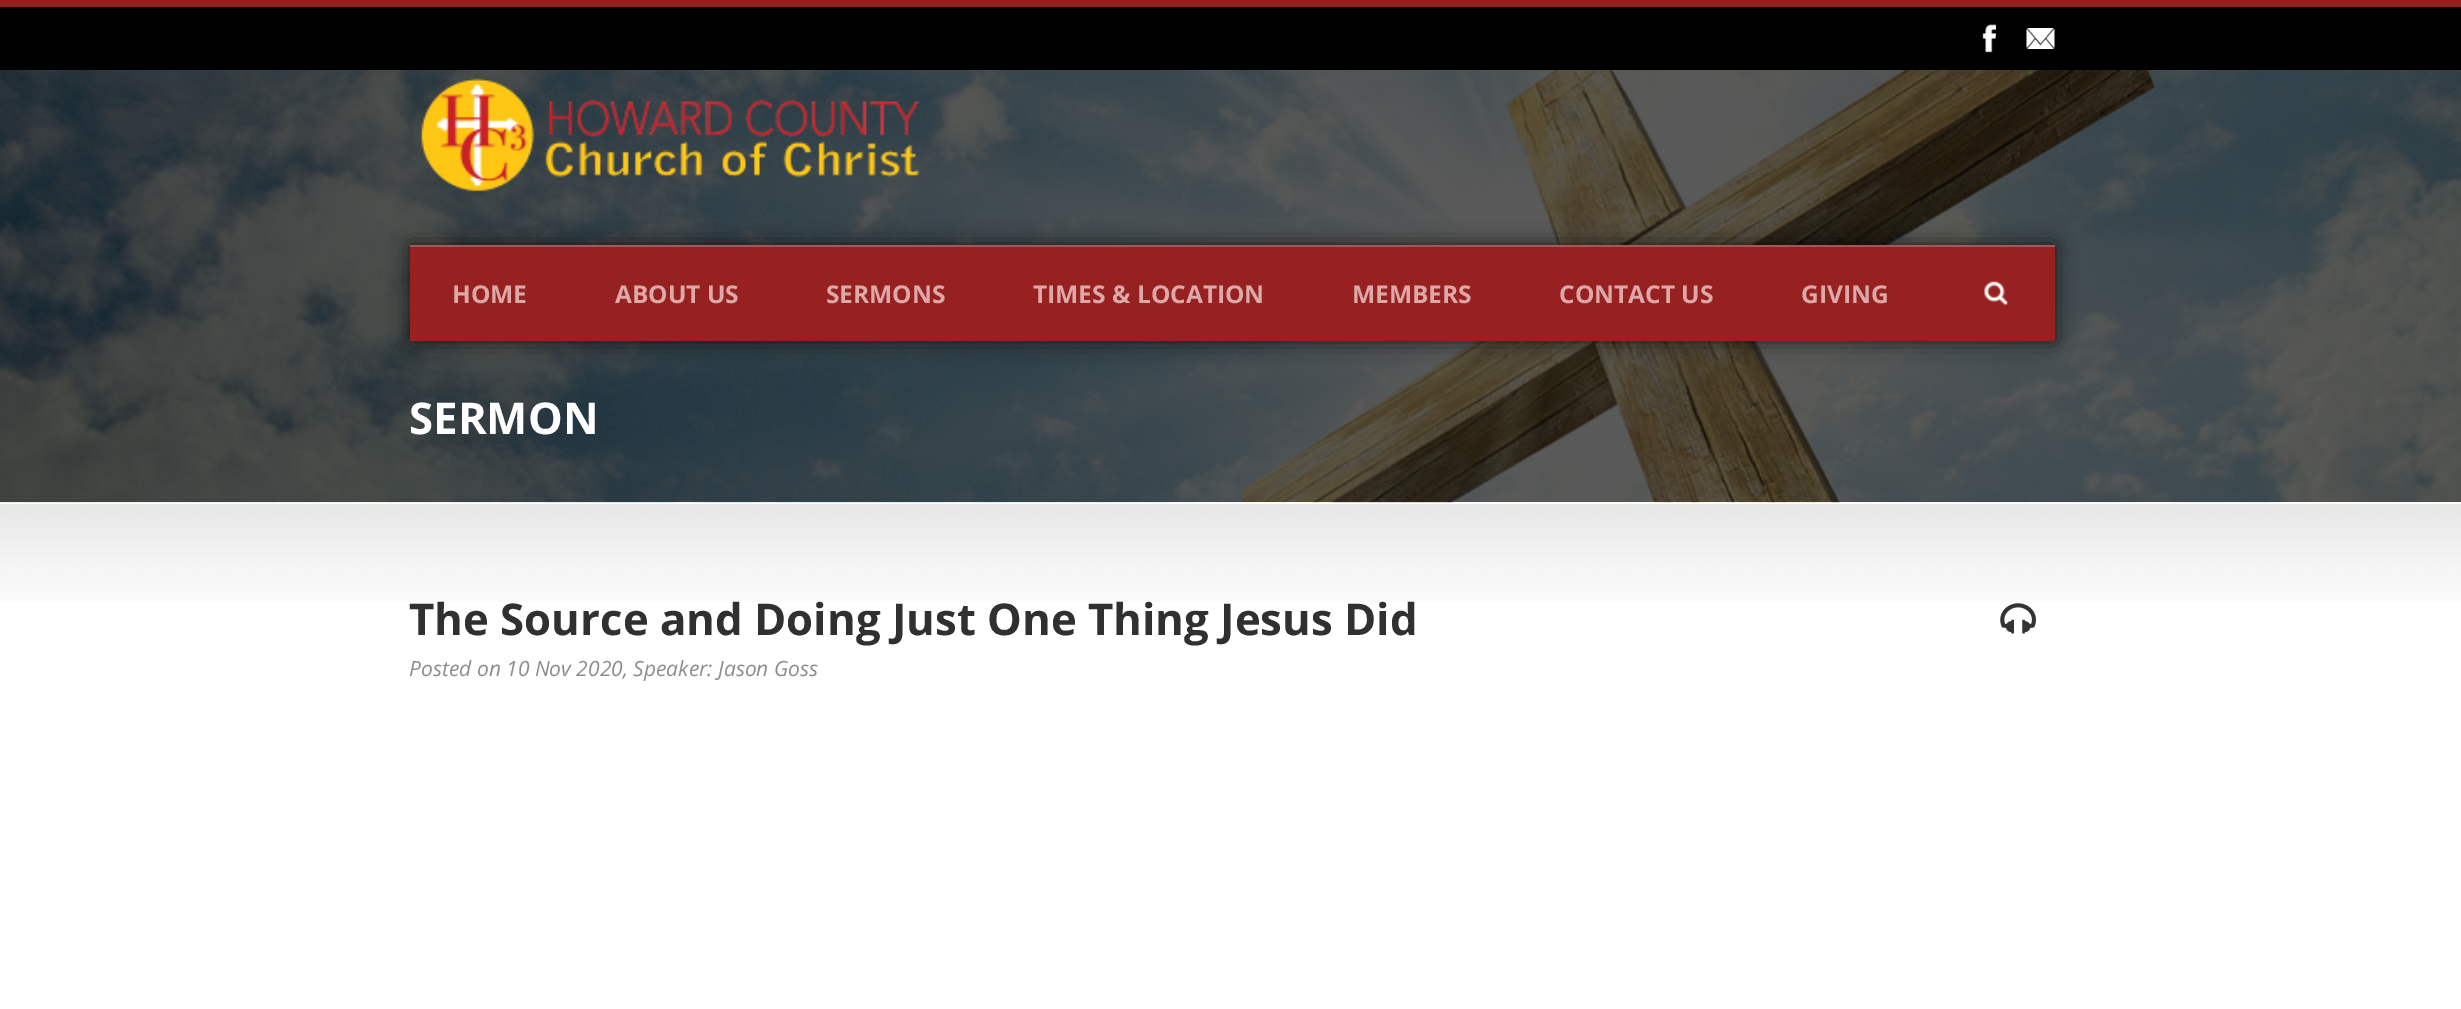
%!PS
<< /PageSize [2461 1009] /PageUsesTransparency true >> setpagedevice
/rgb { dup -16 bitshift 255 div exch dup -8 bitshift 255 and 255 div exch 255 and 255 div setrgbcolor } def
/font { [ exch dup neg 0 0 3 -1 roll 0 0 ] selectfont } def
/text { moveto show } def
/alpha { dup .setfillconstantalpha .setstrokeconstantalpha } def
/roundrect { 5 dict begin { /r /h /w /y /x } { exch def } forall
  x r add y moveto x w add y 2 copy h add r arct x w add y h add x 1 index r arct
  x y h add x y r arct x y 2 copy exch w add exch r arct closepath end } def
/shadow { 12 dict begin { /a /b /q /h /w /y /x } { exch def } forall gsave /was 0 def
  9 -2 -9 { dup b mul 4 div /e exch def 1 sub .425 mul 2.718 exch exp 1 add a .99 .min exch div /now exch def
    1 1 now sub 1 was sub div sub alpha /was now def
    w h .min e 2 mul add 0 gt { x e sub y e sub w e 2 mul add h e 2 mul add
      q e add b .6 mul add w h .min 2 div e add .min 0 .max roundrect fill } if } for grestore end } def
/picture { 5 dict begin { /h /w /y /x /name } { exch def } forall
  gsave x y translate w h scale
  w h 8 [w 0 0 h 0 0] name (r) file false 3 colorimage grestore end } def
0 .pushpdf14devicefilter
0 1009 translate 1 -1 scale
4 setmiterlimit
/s1 { /OpenSans-Bold 24.5 font 16#DCA8A8 rgb } def
/s2 { /OpenSans-Bold 43.75 font 16#FFFFFF rgb } def
/s3 { /OpenSans-Bold 43.75 font 16#303030 rgb } def
/s4 { /OpenSans-Italic 21 font 16#8C8C8C rgb } def
16#FFFFFF rgb
0 0 2461 1009 rectfill
16#000000 rgb
0 7 2461 63 rectfill
16#931F1F rgb
0 0 2461 7 rectfill
(pic1.raw) 1982 24 14 29 picture
(pic2.raw) 2026 28 29 21 picture
(pic3.raw) 0 70 2461 433 picture
(pic4.raw) 421 78 499 114 picture
16#000000 rgb
410 245 1645 96 0 10.5 0.7 shadow
16#972121 rgb
410 247 1645 94 rectfill
16#A05858 rgb
410 245 1645 2 rectfill
s1
(HOME) 452 303 text
(ABOUT US) 615 303 text
(SERMONS) 826 303 text
(TIMES & LOCATION) 1033 303 text
(MEMBERS) 1352 303 text
(CONTACT US) 1559 303 text
(GIVING) 1801 303 text
(pic5.raw) 1984 281 24 24 picture
s2
(SERMON) 409 434 text
(pic6.raw) 0 504 2461 98 picture
s3
(The Source and Doing Just One Thing Jesus Did) 409 635 text
s4
(Posted on 10 Nov 2020, Speaker: Jason Goss) 409 676 text
(pic7.raw) 2000 603 36 31 picture
.poppdf14devicefilter showpage
